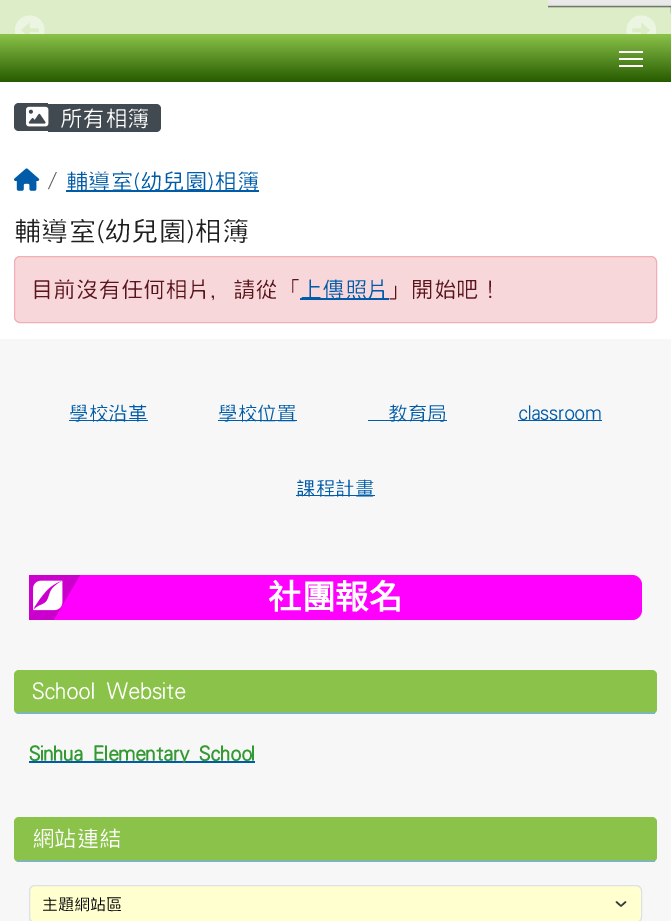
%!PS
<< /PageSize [671 921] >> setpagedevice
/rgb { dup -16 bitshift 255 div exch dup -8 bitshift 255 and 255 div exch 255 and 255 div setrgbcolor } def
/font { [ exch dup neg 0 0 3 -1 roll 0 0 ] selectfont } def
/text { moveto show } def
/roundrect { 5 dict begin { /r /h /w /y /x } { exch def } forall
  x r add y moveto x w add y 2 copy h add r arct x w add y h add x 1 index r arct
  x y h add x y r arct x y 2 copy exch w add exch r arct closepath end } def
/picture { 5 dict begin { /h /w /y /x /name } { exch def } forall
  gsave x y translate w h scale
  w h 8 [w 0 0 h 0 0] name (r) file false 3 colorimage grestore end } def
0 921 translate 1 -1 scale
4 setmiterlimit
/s1 { /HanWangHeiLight-Light 22.4 font 16#FFFFFF rgb } def
/s2 { /HanWangHeiLight-Light 22.4 font 16#595C5F rgb } def
/s3 { /HanWangHeiLight-Light 22.4 font 16#005CA8 rgb } def
/s4 { /HanWangHeiLight-Light 27.25 font 16#202020 rgb } def
/s5 { /HanWangHeiLight-Light 22.4 font 16#58151C rgb } def
/s6 { /HanWangHeiLight-Light 19.5 font 16#005CA8 rgb } def
/s7 { /NotoSansCJKTC-Bold 33.5 font 16#FFFFFF rgb } def
/s8 { /HanWangHeiLight-Bold 20 font 16#339933 rgb } def
/s9 { /HanWangHeiLight-Light 16 font 16#000000 rgb } def
16#DCEDC8 rgb
0 0 671 921 rectfill
(pic1.raw) 548 0 123 14 picture
(pic2.raw) 15 15 30 19 picture
(pic3.raw) 626 15 30 19 picture
gsave 0 34 moveto 671 34 lineto 671 82 lineto 0 82 lineto closepath clip newpath
<< /ShadingType 2 /ColorSpace /DeviceRGB /Coords [336 34 336 82] /Extend [true true] /Function << /FunctionType 2 /Domain [0 1] /C0 [0.545 0.765 0.29] /C1 [0.153 0.357 0] /N 1 >> >> shfill grestore
16#FFFFFF rgb
619 58 24 2 rectfill
619 51 24 2 rectfill
619 65 24 2 rectfill
0 82 671 257 rectfill
16#404A50 rgb
19 103 moveto 48 103 lineto 48 131 lineto 19 131 lineto 16 131 14 129 14 126 curveto 14 108 lineto 14 105 16 103 19 103 curveto closepath fill
48 104 moveto 156 104 lineto 159 104 161 106 161 109 curveto 161 127 lineto 161 130 159 132 156 132 curveto 48 132 lineto closepath fill
(pic4.raw) 26 106 23 21 picture
s1
(所有相簿) 60 125 text
(pic5.raw) 14 168 26 23 picture
s2
(/) 47 188 text
16#005CA8 rgb
66 190 193 2 rectfill
(輔導室\(幼兒園\)相簿) 66 188 text
s4
(輔導室\(幼兒園\)相簿) 14 239 text
16#F8D7DA rgb
14.5 256.5 642 66 5.5 roundrect gsave fill grestore
16#F1AEB5 rgb
stroke
s5
(目前沒有任何相片，請從「) 31 296 text
16#005CA8 rgb
300 298 89 2 rectfill
(上傳照片) 300 296 text
s5
(」開始吧！) 389 296 text
16#F7F7F7 rgb
0 339 671 582 rectfill
16#005CA8 rgb
69 420 79 1 rectfill
s6
(學校沿革) 69 419 text
218 420 79 1 rectfill
(學校位置) 218 419 text
368 420 79 1 rectfill
(教育局) 388 419 text
518 420 84 1 rectfill
(classroom) 518 419 text
296 495 79 1 rectfill
(課程計畫) 296 494 text
16#FF00FF rgb
29 575 moveto 632 575 lineto 637.5 575 642 579.5 642 585 curveto 642 610 lineto 642 615.5 637.5 620 632 620 curveto 29 620 lineto closepath fill
gsave
29 575 613 45 rectclip
16#CC00CC rgb
37 640 moveto 14 627 lineto 14 599 lineto 36 560 lineto 55 560 lineto 80 575 lineto 42 640 lineto closepath fill
grestore
(pic6.raw) 33 580 30 31 picture
s7
(社團報名) 268 609 text
gsave
14 670 643 132 4 roundrect clip newpath
16#8BC34A rgb
14 670 643 44 5 roundrect fill
grestore
16#7CB6B7 rgb
17 712 638 2 rectfill
s1
(School Website) 32 698 text
16#005CA8 rgb
29 761 226 2 rectfill
s8
(Sinhua Elementary School) 29 760 text
gsave
14 817 643 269 4 roundrect clip newpath
16#8BC34A rgb
14 817 643 45 5 roundrect fill
grestore
16#7CB6B7 rgb
17 860 638 2 rectfill
s1
(網站連結) 32 845 text
16#FFFFCF rgb
30 886 611 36 5 roundrect fill
16#343A40 rgb
1.5 setlinewidth
1 setlinecap
1 setlinejoin
616.5 902 moveto 621 906 lineto 625.5 902 lineto stroke
16#DEE2E6 rgb
1 setlinewidth
0 setlinecap
0 setlinejoin
29.5 885.5 612 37 5.5 roundrect stroke
s9
(主題網站區) 42 909 text
showpage
